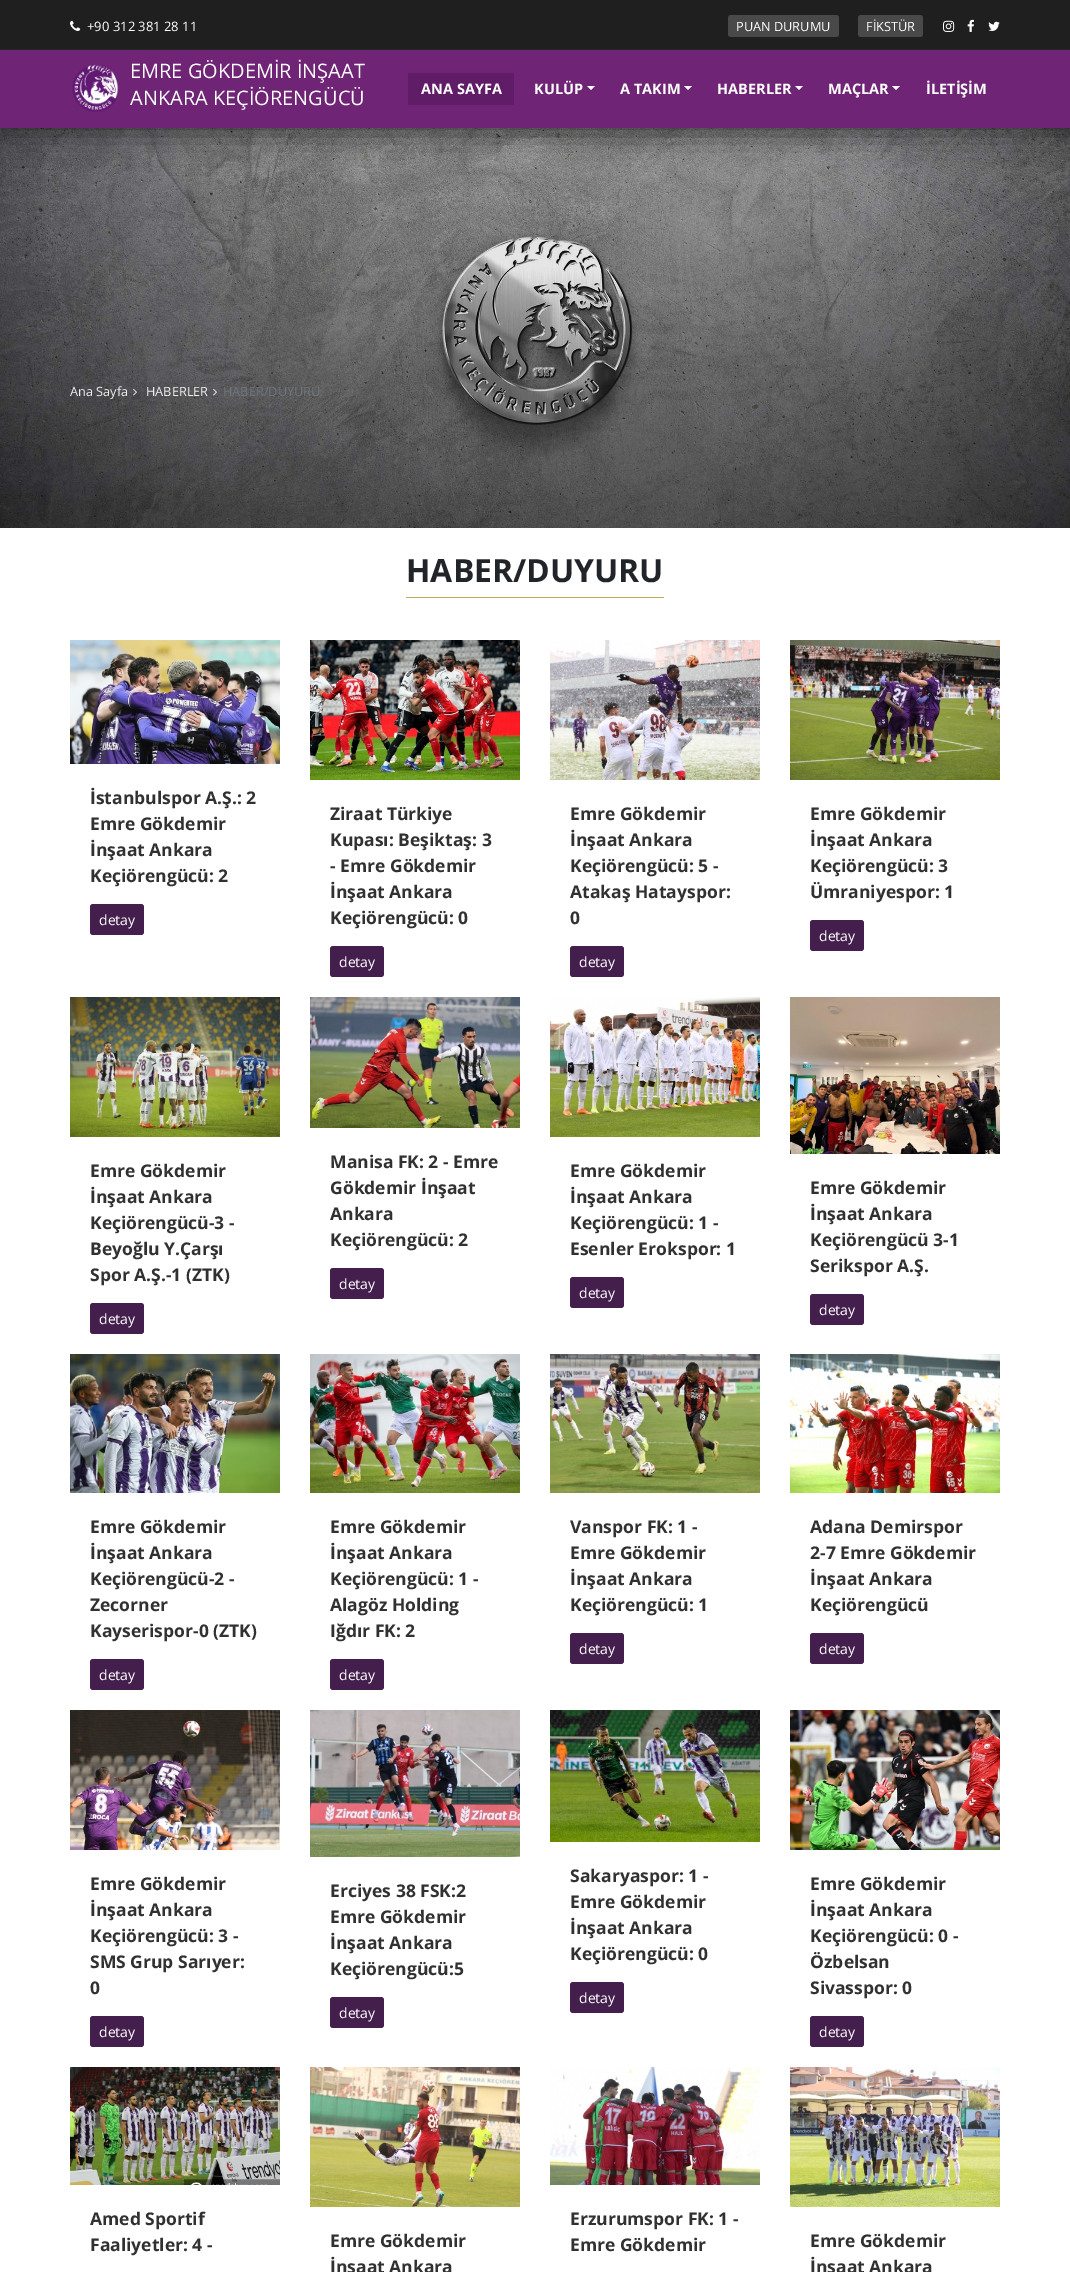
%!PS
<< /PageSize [1070 2272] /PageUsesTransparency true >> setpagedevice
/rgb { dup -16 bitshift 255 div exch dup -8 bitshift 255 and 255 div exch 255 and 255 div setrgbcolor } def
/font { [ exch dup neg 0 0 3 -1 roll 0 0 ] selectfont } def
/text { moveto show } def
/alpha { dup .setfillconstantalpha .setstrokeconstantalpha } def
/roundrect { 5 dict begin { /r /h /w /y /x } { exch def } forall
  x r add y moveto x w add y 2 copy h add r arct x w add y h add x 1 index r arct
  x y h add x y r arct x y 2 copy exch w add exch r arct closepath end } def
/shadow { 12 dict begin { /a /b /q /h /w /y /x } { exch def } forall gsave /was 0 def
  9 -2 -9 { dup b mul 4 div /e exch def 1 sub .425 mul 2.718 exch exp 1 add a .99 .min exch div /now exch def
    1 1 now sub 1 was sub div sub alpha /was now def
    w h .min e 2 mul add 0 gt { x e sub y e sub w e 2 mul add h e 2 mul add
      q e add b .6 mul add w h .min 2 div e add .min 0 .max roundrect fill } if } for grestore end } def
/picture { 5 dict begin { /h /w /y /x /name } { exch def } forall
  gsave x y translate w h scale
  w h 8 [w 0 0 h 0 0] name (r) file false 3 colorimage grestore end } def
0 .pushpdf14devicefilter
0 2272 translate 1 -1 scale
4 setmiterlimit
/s1 { /OpenSans-Regular 13 font 16#FFFFFF rgb } def
/s2 { /OpenSans-Regular 12.75 font 16#FFFFFF rgb } def
/s3 { /OpenSans-Regular 20 font 16#FFFFFF rgb } def
/s4 { /OpenSans-Bold 14.5 font 16#FFFFFF rgb } def
/s5 { /OpenSans-Regular 12.75 font 16#EEEEEE rgb } def
/s6 { /OpenSans-Regular 12.75 font 16#6C757D rgb } def
/s7 { /OpenSans-Bold 32 font 16#212529 rgb } def
/s8 { /OpenSans-Bold 17.5 font 16#313131 rgb } def
/s9 { /OpenSans-Regular 14 font 16#FFFFFF rgb } def
16#FFFFFF rgb
0 0 1070 2272 rectfill
(pic6.raw) 0 128 1070 400 picture
16#000000 rgb
4 56 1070 78 0 15 0.57 shadow
16#1F1F1F rgb
0 0 1070 49 rectfill
16#262626 rgb
0 49 1070 1 rectfill
(pic1.raw) 70 20 11 11 picture
s1
(+90 312 381 28 11) 87 31 text
16#4A4949 rgb
728 15 111 22 3 roundrect fill
s2
(PUAN DURUMU) 736 31 text
16#4A4949 rgb
858 15 65 22 3 roundrect fill
s2
(FİKSTÜR) 866 31 text
(pic2.raw) 943 20 12 12 picture
(pic3.raw) 967 19 7 13 picture
(pic4.raw) 988 21 12 10 picture
16#6F2475 rgb
0 50 1070 78 rectfill
(pic5.raw) 72 64 47 48 picture
s3
(EMRE GÖKDEMİR İNŞAAT) 130 78 text
(ANKARA KEÇİÖRENGÜCÜ) 130 105 text
16#611C67 rgb
408 73 106 32 rectfill
s4
(ANA SAYFA) 421 94 text
(KULÜP) 534 94 text
587 86 moveto 595 86 lineto 591 90 lineto closepath fill
(A TAKIM) 620 94 text
684 86 moveto 692 86 lineto 688 90 lineto closepath fill
(HABERLER) 717 94 text
795 86 moveto 803 86 lineto 799 90 lineto closepath fill
(MAÇLAR) 828 94 text
892 86 moveto 900 86 lineto 896 90 lineto closepath fill
(İLETİŞİM) 926 94 text
s5
(Ana Sayfa) 70 396 text
(pic7.raw) 133 388 4 8 picture
(HABERLER) 146 396 text
(pic8.raw) 213 388 4 8 picture
s6
(HABER/DUYURU) 223 396 text
16#BEAC5A rgb
406 597 258 1 rectfill
s7
(HABER/DUYURU) 406 582 text
(pic9.raw) 70 640 210 124 picture
s8
(İstanbulspor A.Ş.: 2) 90 804 text
(Emre Gökdemir) 90 830 text
(İnşaat Ankara) 90 856 text
(Keçiörengücü: 2) 90 882 text
16#441E4C rgb
90 904 54 31 3 roundrect fill
s9
(detay) 99 925 text
(pic10.raw) 310 640 210 140 picture
s8
(Ziraat Türkiye) 330 820 text
(Kupası: Beşiktaş: 3) 330 846 text
(- Emre Gökdemir) 330 872 text
(İnşaat Ankara) 330 898 text
(Keçiörengücü: 0) 330 924 text
16#441E4C rgb
330 946 54 31 3 roundrect fill
s9
(detay) 339 967 text
(pic11.raw) 550 640 210 140 picture
s8
(Emre Gökdemir) 570 820 text
(İnşaat Ankara) 570 846 text
(Keçiörengücü: 5 -) 570 872 text
(Atakaş Hatayspor:) 570 898 text
(0) 570 924 text
16#441E4C rgb
570 946 54 31 3 roundrect fill
s9
(detay) 579 967 text
(pic12.raw) 790 640 210 140 picture
s8
(Emre Gökdemir) 810 820 text
(İnşaat Ankara) 810 846 text
(Keçiörengücü: 3) 810 872 text
(Ümraniyespor: 1) 810 898 text
16#441E4C rgb
810 920 54 31 3 roundrect fill
s9
(detay) 819 941 text
(pic13.raw) 70 997 210 140 picture
s8
(Emre Gökdemir) 90 1177 text
(İnşaat Ankara) 90 1203 text
(Keçiörengücü-3 -) 90 1229 text
(Beyoğlu Y.Çarşı) 90 1255 text
(Spor A.Ş.-1 \(ZTK\)) 90 1281 text
16#441E4C rgb
90 1303 54 31 3 roundrect fill
s9
(detay) 99 1324 text
(pic14.raw) 310 997 210 131 picture
s8
(Manisa FK: 2 - Emre) 330 1168 text
(Gökdemir İnşaat) 330 1194 text
(Ankara) 330 1220 text
(Keçiörengücü: 2) 330 1246 text
16#441E4C rgb
330 1268 54 31 3 roundrect fill
s9
(detay) 339 1289 text
(pic15.raw) 550 997 210 140 picture
s8
(Emre Gökdemir) 570 1177 text
(İnşaat Ankara) 570 1203 text
(Keçiörengücü: 1 -) 570 1229 text
(Esenler Erokspor: 1) 570 1255 text
16#441E4C rgb
570 1277 54 31 3 roundrect fill
s9
(detay) 579 1298 text
(pic16.raw) 790 997 210 157 picture
s8
(Emre Gökdemir) 810 1194 text
(İnşaat Ankara) 810 1220 text
(Keçiörengücü 3-1) 810 1246 text
(Serikspor A.Ş.) 810 1272 text
16#441E4C rgb
810 1294 54 31 3 roundrect fill
s9
(detay) 819 1315 text
(pic17.raw) 70 1354 210 139 picture
s8
(Emre Gökdemir) 90 1533 text
(İnşaat Ankara) 90 1559 text
(Keçiörengücü-2 -) 90 1585 text
(Zecorner) 90 1611 text
(Kayserispor-0 \(ZTK\)) 90 1637 text
16#441E4C rgb
90 1659 54 31 3 roundrect fill
s9
(detay) 99 1680 text
(pic18.raw) 310 1354 210 139 picture
s8
(Emre Gökdemir) 330 1533 text
(İnşaat Ankara) 330 1559 text
(Keçiörengücü: 1 -) 330 1585 text
(Alagöz Holding) 330 1611 text
(Iğdır FK: 2) 330 1637 text
16#441E4C rgb
330 1659 54 31 3 roundrect fill
s9
(detay) 339 1680 text
(pic19.raw) 550 1354 210 139 picture
s8
(Vanspor FK: 1 -) 570 1533 text
(Emre Gökdemir) 570 1559 text
(İnşaat Ankara) 570 1585 text
(Keçiörengücü: 1) 570 1611 text
16#441E4C rgb
570 1633 54 31 3 roundrect fill
s9
(detay) 579 1654 text
(pic20.raw) 790 1354 210 139 picture
s8
(Adana Demirspor) 810 1533 text
(2-7 Emre Gökdemir) 810 1559 text
(İnşaat Ankara) 810 1585 text
(Keçiörengücü) 810 1611 text
16#441E4C rgb
810 1633 54 31 3 roundrect fill
s9
(detay) 819 1654 text
(pic21.raw) 70 1710 210 140 picture
s8
(Emre Gökdemir) 90 1890 text
(İnşaat Ankara) 90 1916 text
(Keçiörengücü: 3 -) 90 1942 text
(SMS Grup Sarıyer:) 90 1968 text
(0) 90 1994 text
16#441E4C rgb
90 2016 54 31 3 roundrect fill
s9
(detay) 99 2037 text
(pic22.raw) 310 1710 210 147 picture
s8
(Erciyes 38 FSK:2) 330 1897 text
(Emre Gökdemir) 330 1923 text
(İnşaat Ankara) 330 1949 text
(Keçiörengücü:5) 330 1975 text
16#441E4C rgb
330 1997 54 31 3 roundrect fill
s9
(detay) 339 2018 text
(pic23.raw) 550 1710 210 132 picture
s8
(Sakaryaspor: 1 -) 570 1882 text
(Emre Gökdemir) 570 1908 text
(İnşaat Ankara) 570 1934 text
(Keçiörengücü: 0) 570 1960 text
16#441E4C rgb
570 1982 54 31 3 roundrect fill
s9
(detay) 579 2003 text
(pic24.raw) 790 1710 210 140 picture
s8
(Emre Gökdemir) 810 1890 text
(İnşaat Ankara) 810 1916 text
(Keçiörengücü: 0 -) 810 1942 text
(Özbelsan) 810 1968 text
(Sivasspor: 0) 810 1994 text
16#441E4C rgb
810 2016 54 31 3 roundrect fill
s9
(detay) 819 2037 text
(pic25.raw) 70 2067 210 118 picture
s8
(Amed Sportif) 90 2225 text
(Faaliyetler: 4 -) 90 2251 text
(pic26.raw) 310 2067 210 140 picture
(Emre Gökdemir) 330 2247 text
(İnşaat Ankara) 330 2273 text
(pic27.raw) 550 2067 210 118 picture
(Erzurumspor FK: 1 -) 570 2225 text
(Emre Gökdemir) 570 2251 text
(pic28.raw) 790 2067 210 140 picture
(Emre Gökdemir) 810 2247 text
(İnşaat Ankara) 810 2273 text
.poppdf14devicefilter showpage
